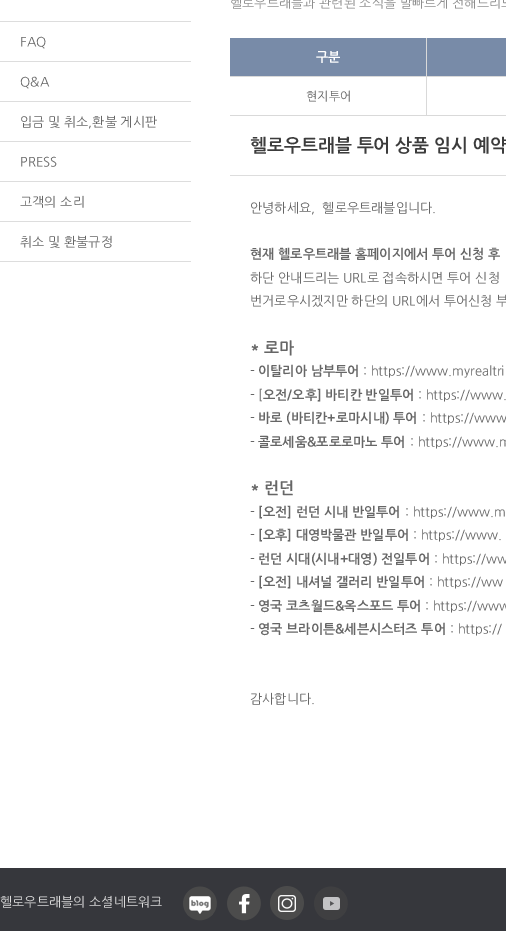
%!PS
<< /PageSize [506 931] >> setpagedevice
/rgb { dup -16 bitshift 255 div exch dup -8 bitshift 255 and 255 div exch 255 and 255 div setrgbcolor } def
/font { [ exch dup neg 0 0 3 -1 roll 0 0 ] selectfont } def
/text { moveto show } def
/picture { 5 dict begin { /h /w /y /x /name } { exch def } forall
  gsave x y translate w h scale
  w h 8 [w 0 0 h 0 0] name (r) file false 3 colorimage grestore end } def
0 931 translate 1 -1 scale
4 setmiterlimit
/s1 { /NanumGothic-Regular 13 font 16#666666 rgb } def
/s2 { /NanumGothic-Regular 13 font 16#8E8E8E rgb } def
/s3 { /NanumGothic-Bold 13 font 16#FFFFFF rgb } def
/s4 { /NanumGothic-Regular 12 font 16#666666 rgb } def
/s5 { /NanumGothic-Bold 18 font 16#3C3C3C rgb } def
/s6 { /NanumGothic-Bold 13 font 16#666666 rgb } def
/s7 { /NanumGothic-Bold 16 font 16#666666 rgb } def
/s8 { /NanumGothic-Regular 13 font 16#DDDDDD rgb } def
16#FFFFFF rgb
0 0 506 931 rectfill
16#DDDDDD rgb
0 261 191 1 rectfill
0 21 191 1 rectfill
s1
(FAQ) 20 46 text
16#DDDDDD rgb
0 61 191 1 rectfill
s1
(Q&A) 20 86 text
16#DDDDDD rgb
0 101 191 1 rectfill
s1
(입금 및 취소,환불 게시판) 20 126 text
16#DDDDDD rgb
0 141 191 1 rectfill
s1
(PRESS) 20 166 text
16#DDDDDD rgb
0 181 191 1 rectfill
s1
(고객의 소리) 20 206 text
16#DDDDDD rgb
0 221 191 1 rectfill
s1
(취소 및 환불규정) 20 246 text
s2
(헬로우트래블과 관련된 소식을 발빠르게 전해드리도) 230 7 text
16#788BA8 rgb
230 38 196 38 rectfill
s3
(구분) 316 61 text
16#788BA8 rgb
427 38 79 38 rectfill
16#D9D9D9 rgb
426 76 80 1 rectfill
426 115 80 1 rectfill
426 76 1 40 rectfill
230 76 197 1 rectfill
426 38 1 39 rectfill
230 115 197 1 rectfill
s4
(현지투어) 306 100 text
s5
(헬로우트래블 투어 상품 임시 예약) 250 151 text
16#DDDDDD rgb
230 175 276 1 rectfill
s1
(안녕하세요,  헬로우트래블입니다.) 250 212 text
s6
(현재 헬로우트래블 홈페이지에서 투어 신청 후) 250 258 text
s1
(하단 안내드리는 URL로 접속하시면 투어 신청) 250 282 text
(번거로우시겠지만 하단의 URL에서 투어신청 부) 250 305 text
s7
(* 로마) 250 353 text
s1
(-) 250 375 text
s6
(이탈리아 남부투어) 258 375 text
s1
(: https://www.myrealtri) 363 375 text
(- [) 250 399 text
s6
(오전/오후] 바티칸 반일투어) 263 399 text
s1
(: https://www.) 418 399 text
(-) 250 422 text
s6
(바로 \(바티칸+로마시내\) 투어) 258 422 text
s1
(: https://www) 422 422 text
(-) 250 446 text
s6
(콜로세움&포로로마노 투어) 258 446 text
s1
(: https://www.m) 410 446 text
s7
(* 런던) 250 493 text
s1
(-) 250 516 text
s6
([오전] 런던 시내 반일투어) 258 516 text
s1
(: https://www.m) 405 516 text
(-) 250 539 text
s6
([오후] 대영박물관 반일투어) 258 539 text
s1
(: https://www.) 413 539 text
(-) 250 563 text
s6
(런던 시대\(시내+대영\) 전일투어) 258 563 text
s1
(: https://ww) 434 563 text
(-) 250 586 text
s6
([오전] 내셔널 갤러리 반일투어) 258 586 text
s1
(: https://ww) 429 586 text
(-) 250 610 text
s6
(영국 코츠월드&옥스포드 투어) 258 610 text
s1
(: https://www) 425 610 text
(-) 250 633 text
s6
(영국 브라이튼&세븐시스터즈 투어) 258 633 text
s1
(: https://) 450 633 text
(감사합니다.) 250 703 text
16#36373C rgb
0 868 506 63 rectfill
s8
(헬로우트래블의 소셜네트워크) 0 906 text
(pic1.raw) 183 886 34 35 picture
(pic2.raw) 227 886 34 35 picture
(pic3.raw) 270 886 34 34 picture
(pic4.raw) 314 886 34 34 picture
showpage
